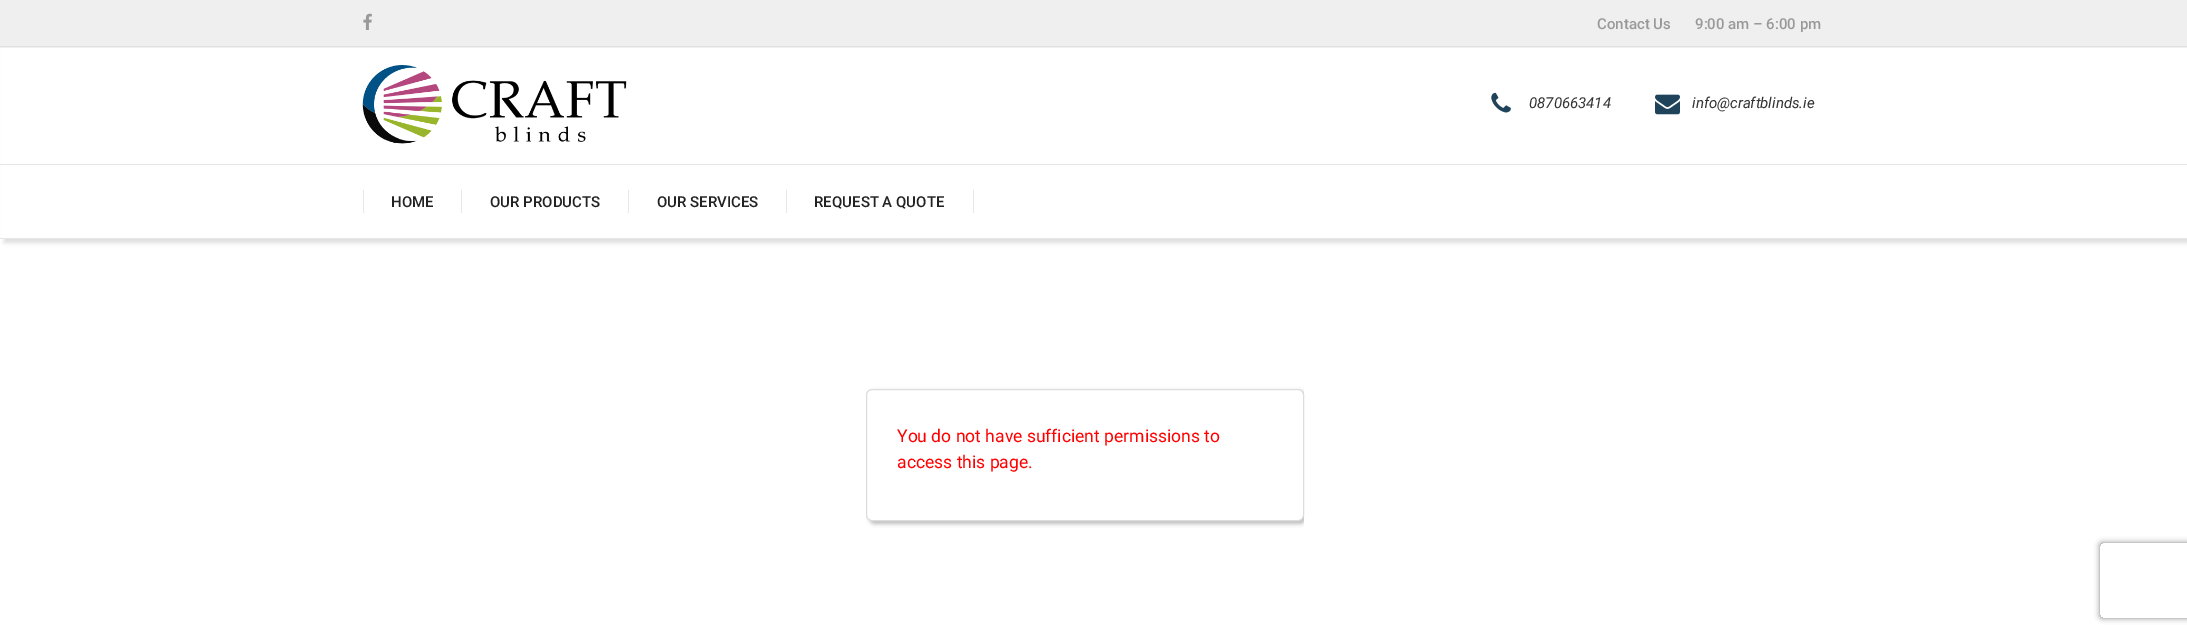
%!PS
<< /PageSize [2187 634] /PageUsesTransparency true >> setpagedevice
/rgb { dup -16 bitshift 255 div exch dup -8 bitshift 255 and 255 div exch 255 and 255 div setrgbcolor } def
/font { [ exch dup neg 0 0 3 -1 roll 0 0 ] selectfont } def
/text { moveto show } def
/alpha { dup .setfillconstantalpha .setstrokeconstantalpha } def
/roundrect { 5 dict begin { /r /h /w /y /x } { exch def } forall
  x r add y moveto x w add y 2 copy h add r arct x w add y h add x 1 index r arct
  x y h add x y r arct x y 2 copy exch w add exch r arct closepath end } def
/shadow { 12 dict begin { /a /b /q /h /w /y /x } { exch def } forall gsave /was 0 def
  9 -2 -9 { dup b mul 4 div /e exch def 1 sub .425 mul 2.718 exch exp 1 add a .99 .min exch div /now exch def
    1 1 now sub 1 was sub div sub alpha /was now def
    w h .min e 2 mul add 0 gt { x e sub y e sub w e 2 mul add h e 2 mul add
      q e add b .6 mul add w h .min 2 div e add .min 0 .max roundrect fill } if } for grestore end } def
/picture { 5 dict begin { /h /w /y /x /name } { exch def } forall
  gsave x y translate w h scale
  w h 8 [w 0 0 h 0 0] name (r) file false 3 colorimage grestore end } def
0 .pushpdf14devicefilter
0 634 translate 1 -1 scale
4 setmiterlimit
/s1 { /Roboto-Medium 15 font 16#999999 rgb } def
/s2 { /Roboto-Italic 15 font 16#333333 rgb } def
/s3 { /Roboto-Medium 15 font 16#222222 rgb } def
/s4 { /Roboto-Regular 17.5 font 16#FF0000 rgb } def
16#FFFFFF rgb
0 0 2187 634 rectfill
16#DEDEDE rgb
4 4 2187 239 0 2 1 shadow
16#FFFFFF rgb
1 48 2186 190 rectfill
16#EFEFEF rgb
0 0 2187 48 rectfill
16#E1E1E1 rgb
0 46 2187 1 rectfill
(pic1.raw) 363 13 9 17 picture
s1
(Contact Us) 1597 29 text
(9:00 am – 6:00 pm) 1695 29 text
(pic2.raw) 362 65 265 79 picture
(pic3.raw) 1491 92 20 21 picture
s2
(0870663414) 1529 108 text
(pic4.raw) 1655 94 25 21 picture
(info@craftblinds.ie) 1692 108 text
16#E7E7E7 rgb
0 164 2187 1 rectfill
0 238 2187 1 rectfill
363 190 1 23 rectfill
s3
(HOME) 391 207 text
16#E7E7E7 rgb
461 190 1 23 rectfill
s3
(OUR PRODUCTS) 490 207 text
16#E7E7E7 rgb
628 190 1 23 rectfill
s3
(OUR SERVICES) 657 207 text
16#E7E7E7 rgb
973 190 1 23 rectfill
786 190 1 23 rectfill
s3
(REQUEST A QUOTE) 814 207 text
gsave
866 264 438 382 rectclip
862 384 moveto 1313 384 lineto 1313 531 lineto 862 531 lineto closepath 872 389 moveto 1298 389 lineto 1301.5 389 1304 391.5 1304 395 curveto 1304 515 lineto 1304 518.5 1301.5 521 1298 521 curveto 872 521 lineto 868.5 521 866 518.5 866 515 curveto 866 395 lineto 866 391.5 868.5 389 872 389 curveto closepath eoclip newpath
16#000000 rgb
869 391 437 133 6 2 0.25 shadow
grestore
16#DDDDDD rgb
866.5 389.5 437 131 5.5 roundrect stroke
s4
(You do not have sufficient permissions to) 897 442 text
(access this page.) 897 468 text
gsave
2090 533 moveto 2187 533 lineto 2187 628 lineto 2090 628 lineto closepath 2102.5 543 moveto 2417.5 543 lineto 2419 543 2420 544 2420 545.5 curveto 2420 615.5 lineto 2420 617 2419 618 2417.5 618 curveto 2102.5 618 lineto 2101 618 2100 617 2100 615.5 curveto 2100 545.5 lineto 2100 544 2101 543 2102.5 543 curveto closepath eoclip newpath
16#808080 rgb
2100 543 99 75 2.5 3 1 shadow
grestore
.poppdf14devicefilter showpage
